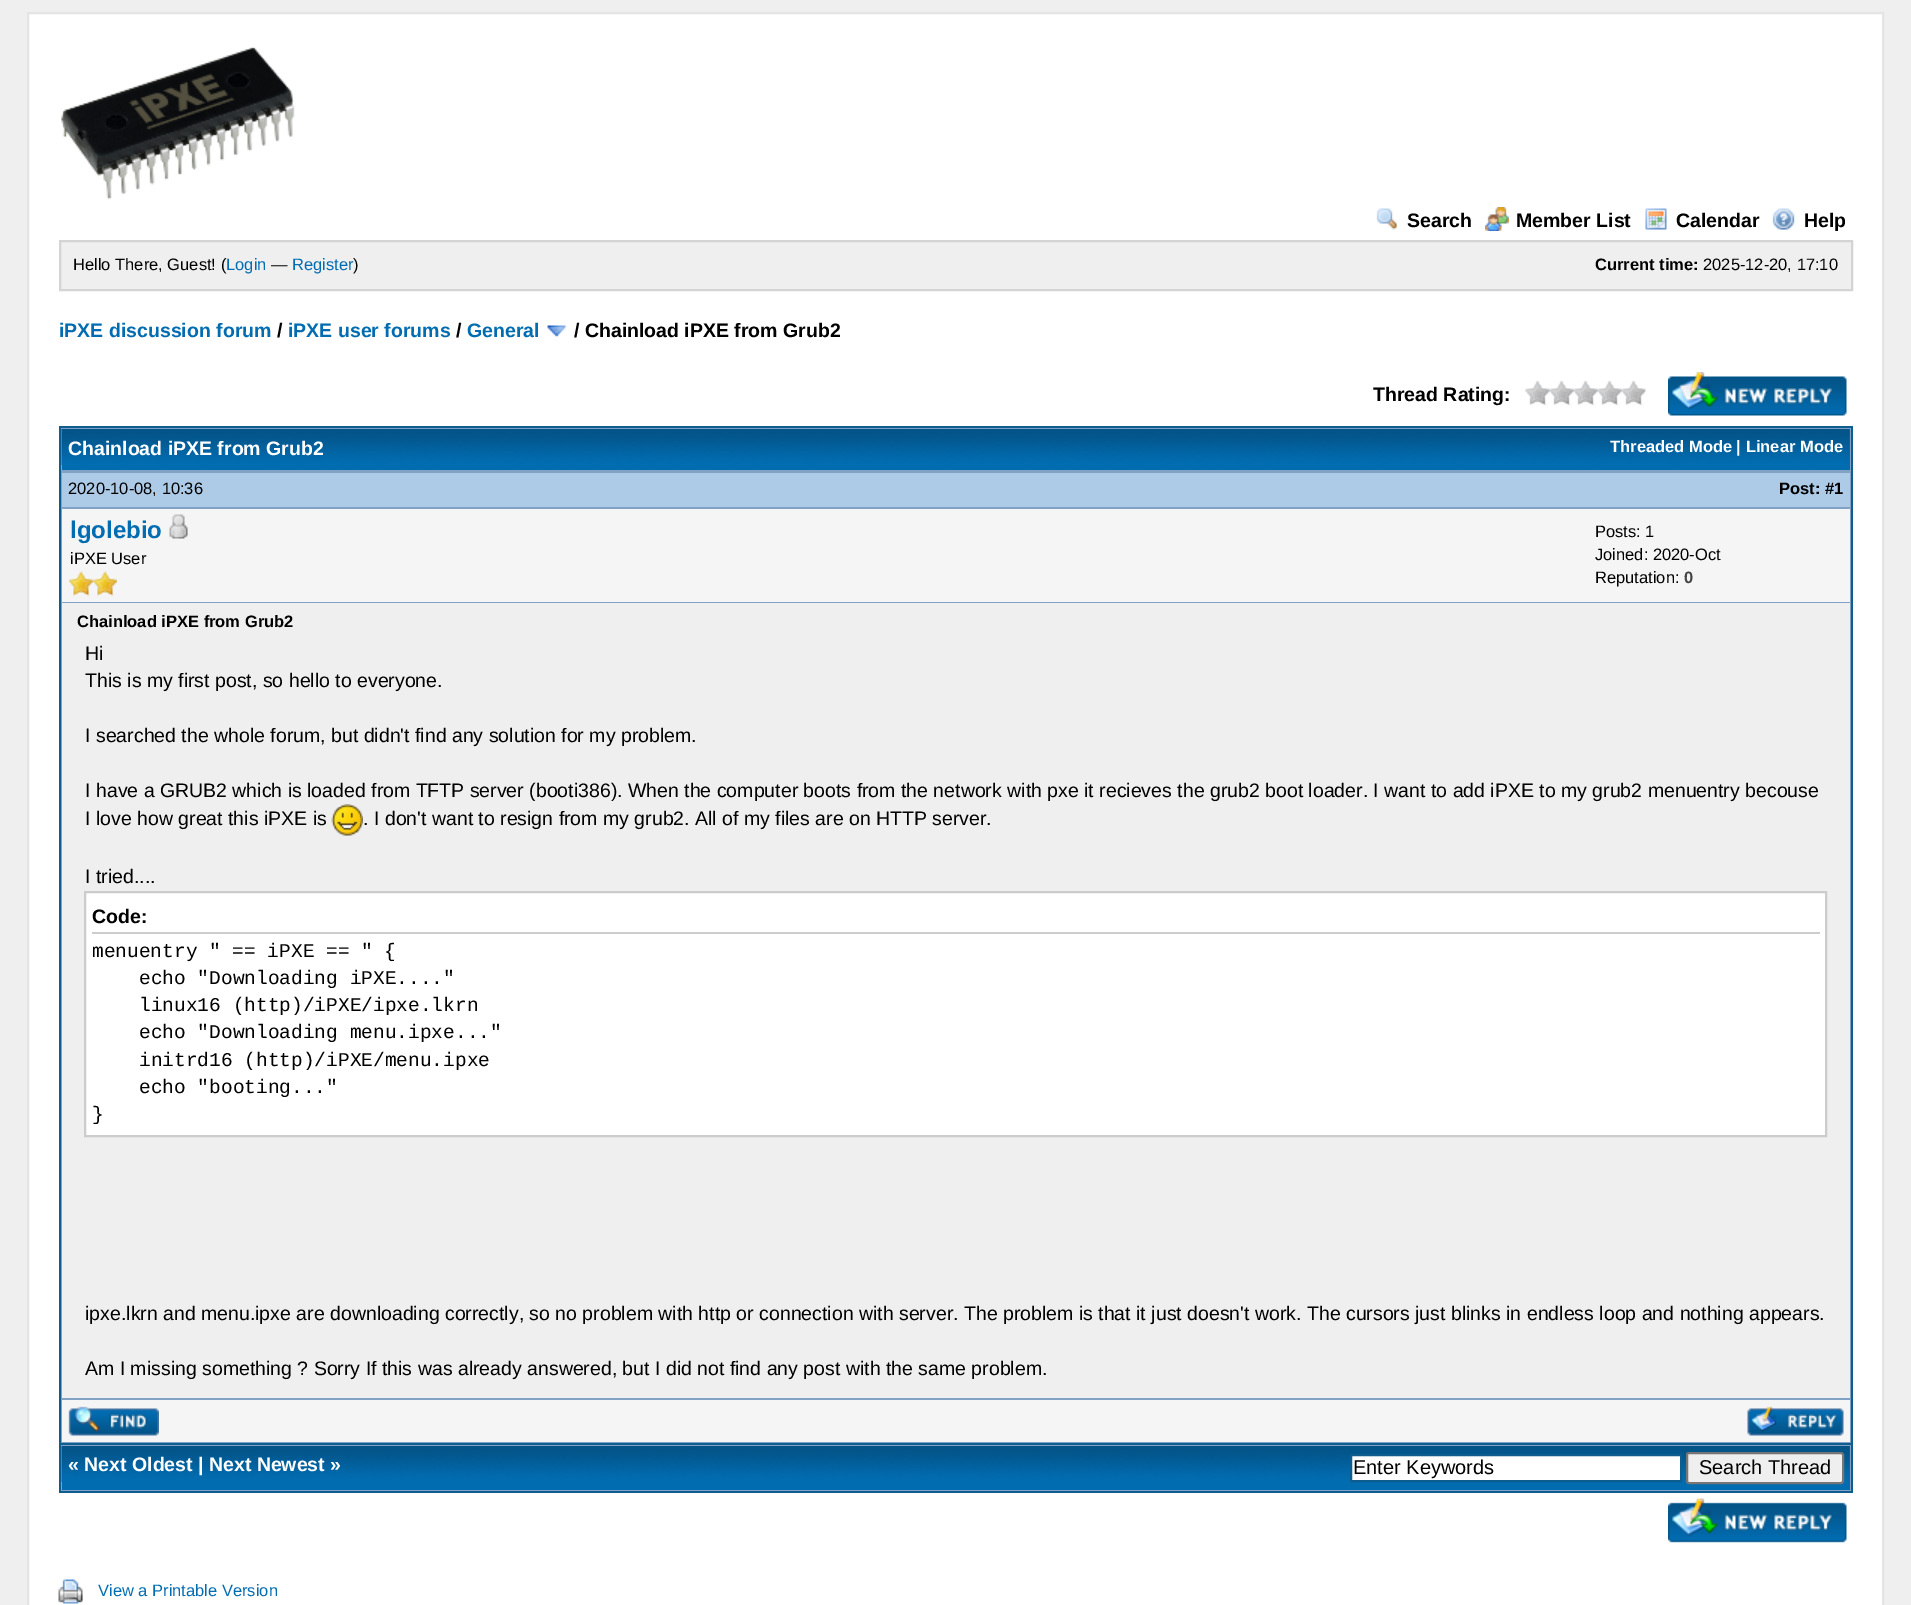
%!PS
<< /PageSize [1911 1605] >> setpagedevice
/rgb { dup -16 bitshift 255 div exch dup -8 bitshift 255 and 255 div exch 255 and 255 div setrgbcolor } def
/font { [ exch dup neg 0 0 3 -1 roll 0 0 ] selectfont } def
/text { moveto show } def
/roundrect { 5 dict begin { /r /h /w /y /x } { exch def } forall
  x r add y moveto x w add y 2 copy h add r arct x w add y h add x 1 index r arct
  x y h add x y r arct x y 2 copy exch w add exch r arct closepath end } def
/picture { 5 dict begin { /h /w /y /x /name } { exch def } forall
  gsave x y translate w h scale
  w h 8 [w 0 0 h 0 0] name (r) file false 3 colorimage grestore end } def
0 1605 translate 1 -1 scale
4 setmiterlimit
/s1 { /LiberationSans-Bold 19.5 font 16#000000 rgb } def
/s2 { /LiberationSans-Regular 16.5 font 16#000000 rgb } def
/s3 { /LiberationSans-Regular 16.5 font 16#026CB1 rgb } def
/s4 { /LiberationSans-Bold 16.5 font 16#000000 rgb } def
/s5 { /LiberationSans-Bold 19.5 font 16#026CB1 rgb } def
/s6 { /LiberationSans-Bold 19.5 font 16#FFFFFF rgb } def
/s7 { /LiberationSans-Bold 16.5 font 16#FFFFFF rgb } def
/s8 { /LiberationSans-Bold 24 font 16#026CB1 rgb } def
/s9 { /LiberationSans-Bold 16.5 font 16#444444 rgb } def
/s10 { /LiberationSans-Regular 19.5 font 16#000000 rgb } def
/s11 { /LiberationMono-Regular 19.5 font 16#000000 rgb } def
/s12 { /LiberationSans-Regular 20 font 16#000000 rgb } def
16#EFEFEF rgb
0 0 1911 1605 rectfill
16#FFFFFF rgb
28 13 moveto 1883 13 lineto 1883 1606 lineto 28 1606 lineto closepath gsave fill grestore
16#E4E4E4 rgb
2 setlinewidth
stroke
(pic1.raw) 60 47 235 153 picture
(pic2.raw) 1376 208 21 22 picture
s1
(Search) 1407 227 text
(pic3.raw) 1485 207 24 24 picture
(Member List) 1516 227 text
(pic4.raw) 1645 208 22 22 picture
(Calendar) 1676 227 text
(pic5.raw) 1772 208 23 22 picture
(Help) 1804 227 text
16#EFEFEF rgb
60 241 moveto 1852 241 lineto 1852 290 lineto 60 290 lineto closepath gsave fill grestore
16#D4D4D4 rgb
stroke
s2
(Hello There, Guest! \() 73 270 text
s3
(Login) 226 270 text
s2
(—) 271 270 text
s3
(Register) 292 270 text
s2
(\)) 353 270 text
s4
(Current time:) 1595 270 text
s2
(2025-12-20, 17:10) 1703 270 text
s5
(iPXE discussion forum) 59 337 text
s1
(/) 277 337 text
s5
(iPXE user forums) 288 337 text
s1
(/) 456 337 text
s5
(General) 467 337 text
(pic6.raw) 547 325 19 12 picture
s1
(/ Chainload iPXE from Grub2) 574 337 text
(Thread Rating:) 1373 401 text
(pic7.raw) 1525 381 121 24 picture
(pic8.raw) 1668 372 179 44 picture
16#81A2C4 rgb
61 428 1790 1015 rectfill
16#0F5C8E rgb
59 426 1794 2 rectfill
1851 426 2 1067 rectfill
59 426 2 45 rectfill
16#026CB1 rgb
62 429 1788 41 rectfill
(pic9.raw) 61 429 1789 36 picture
s6
(Chainload iPXE from Grub2) 68 455 text
s7
(Threaded Mode | Linear Mode) 1610 452 text
16#0F5C8E rgb
59 1443 1794 2 rectfill
59 471 2 974 rectfill
16#ADCBE7 rgb
62 473 1788 34 rectfill
s2
(2020-10-08, 10:36) 68 494 text
s4
(Post: #1) 1779 494 text
16#F5F5F5 rgb
62 509 1788 93 rectfill
s8
(lgolebio) 70 538 text
(pic10.raw) 169 514 19 25 picture
s2
(iPXE User) 70 564 text
(pic11.raw) 69 571 24 25 picture
(pic11.raw) 93 571 24 25 picture
(Posts: 1) 1595 537 text
(Joined: 2020-Oct) 1595 560 text
(Reputation:) 1595 583 text
s9
(0) 1684 583 text
16#EFEFEF rgb
62 603 1788 795 rectfill
s4
(Chainload iPXE from Grub2) 77 627 text
s10
(Hi) 85 660 text
(This is my first post, so hello to everyone.) 85 687 text
(I searched the whole forum, but didn't find any solution for my problem.) 85 742 text
(I have a GRUB2 which is loaded from TFTP server \(booti386\). When the computer boots from the network with pxe it recieves the grub2 boot loader. I want to add iPXE to my grub2 menuentry becouse) 85 797 text
(I love how great this iPXE is) 85 825 text
(pic12.raw) 331 804 32 32 picture
(. I don't want to resign from my grub2. All of my files are on HTTP server.) 363 825 text
(I tried....) 85 883 text
16#FFFFFF rgb
85 892 moveto 1826 892 lineto 1826 1136 lineto 85 1136 lineto closepath gsave fill grestore
16#CCCCCC rgb
stroke
92 932 1728 2 rectfill
s1
(Code:) 92 923 text
s11
(menuentry " == iPXE == " {) 92 957 text
(echo "Downloading iPXE....") 139 984 text
(linux16 \(http\)/iPXE/ipxe.lkrn) 139 1011 text
(echo "Downloading menu.ipxe...") 139 1038 text
(initrd16 \(http\)/iPXE/menu.ipxe) 139 1066 text
(echo "booting...") 139 1093 text
(}) 92 1120 text
s10
(ipxe.lkrn and menu.ipxe are downloading correctly, so no problem with http or connection with server. The problem is that it just doesn't work. The cursors just blinks in endless loop and nothing appears.) 85 1320 text
(Am I missing something ? Sorry If this was already answered, but I did not find any post with the same problem.) 85 1375 text
16#F5F5F5 rgb
62 1400 1788 42 rectfill
(pic13.raw) 68 1406 91 30 picture
(pic14.raw) 1747 1406 97 30 picture
16#81A2C4 rgb
61 1445 1790 46 rectfill
16#0F5C8E rgb
59 1491 1794 2 rectfill
59 1445 2 48 rectfill
16#026CB1 rgb
62 1446 1788 44 rectfill
(pic15.raw) 61 1446 1789 36 picture
s6
(« Next Oldest | Next Newest ») 68 1471 text
1351 1455 moveto 1681 1455 lineto 1681 1481 lineto 1351 1481 lineto closepath gsave fill grestore
16#0F5C8E rgb
stroke
s12
(Enter Keywords) 1353 1474 text
16#EFEFEF rgb
1687 1453 156 30 2 roundrect gsave fill grestore
16#767676 rgb
stroke
s12
(Search Thread) 1699 1474 text
(pic16.raw) 1668 1498 179 45 picture
(pic17.raw) 58 1579 25 25 picture
s3
(View a Printable Version) 98 1596 text
showpage
